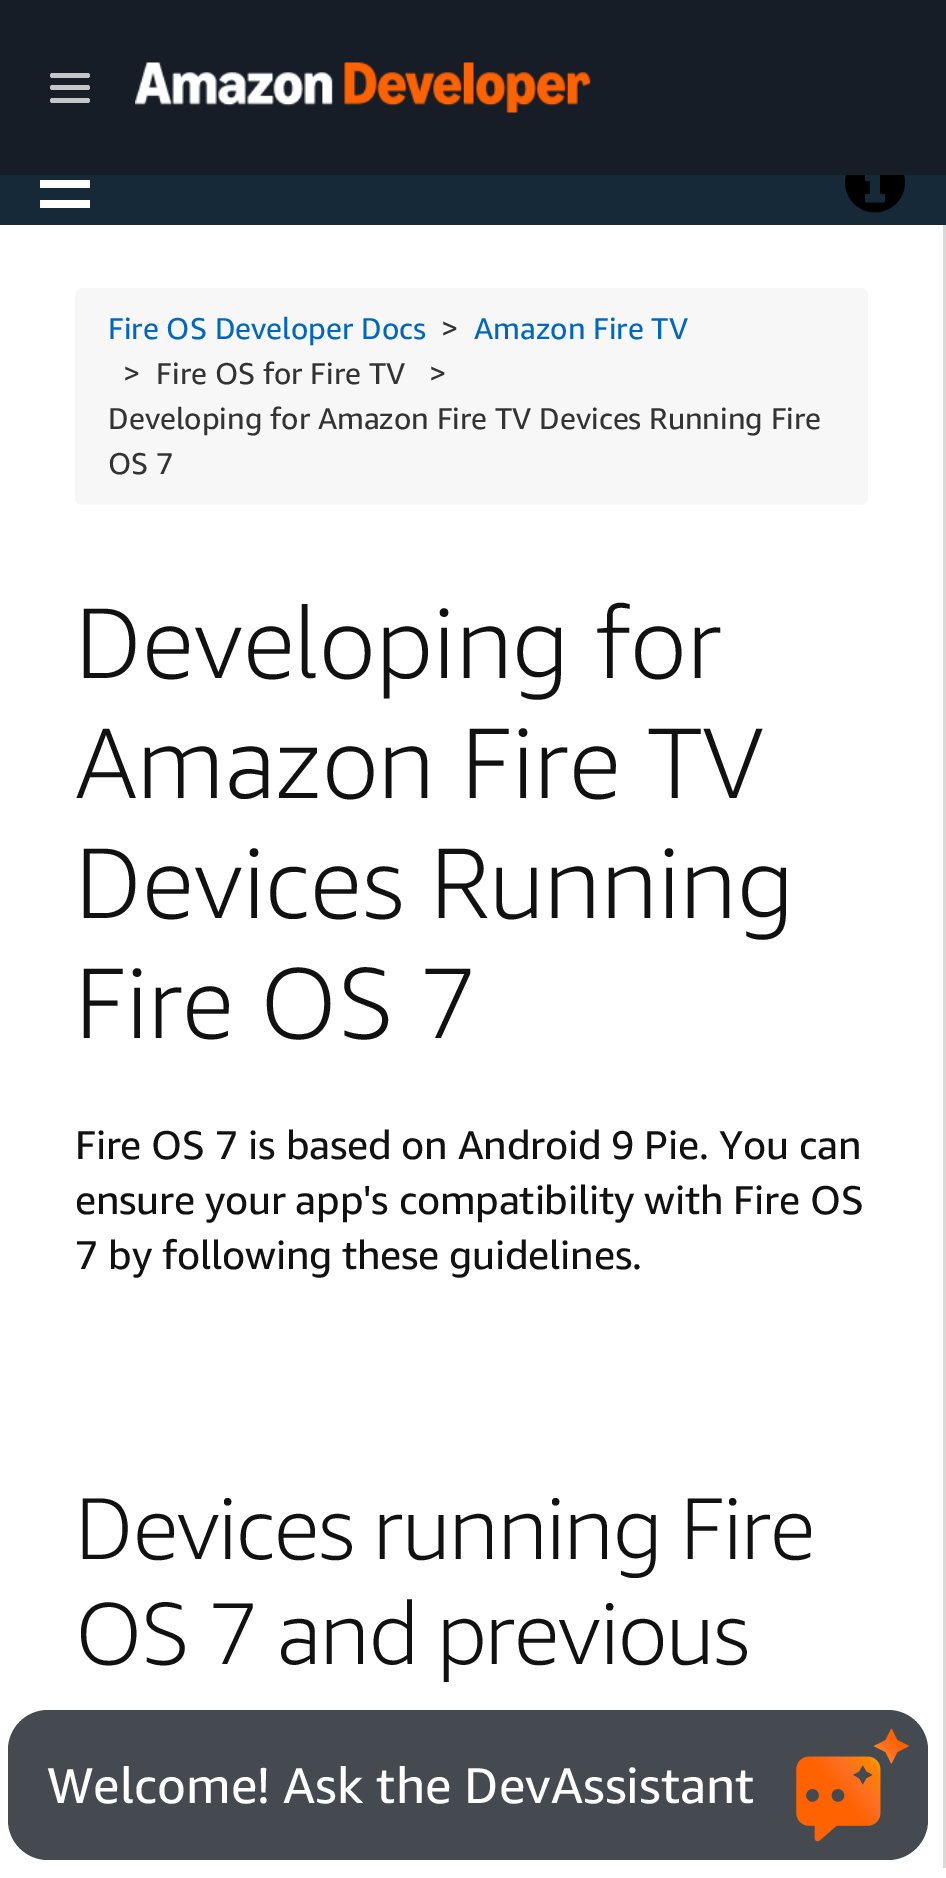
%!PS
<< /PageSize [946 1878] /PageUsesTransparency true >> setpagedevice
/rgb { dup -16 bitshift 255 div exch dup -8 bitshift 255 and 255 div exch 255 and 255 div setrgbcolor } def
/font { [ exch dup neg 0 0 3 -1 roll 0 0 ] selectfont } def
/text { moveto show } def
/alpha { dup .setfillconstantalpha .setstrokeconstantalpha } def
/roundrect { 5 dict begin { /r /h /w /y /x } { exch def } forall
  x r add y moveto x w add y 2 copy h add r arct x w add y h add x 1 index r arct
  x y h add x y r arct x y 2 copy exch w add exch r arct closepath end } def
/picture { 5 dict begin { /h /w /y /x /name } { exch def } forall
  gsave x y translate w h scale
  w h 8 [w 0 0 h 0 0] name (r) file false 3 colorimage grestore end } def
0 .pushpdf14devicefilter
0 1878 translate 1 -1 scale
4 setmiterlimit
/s1 { /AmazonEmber-Regular 30 font 16#0066C0 rgb } def
/s2 { /AmazonEmber-Regular 30 font 16#333333 rgb } def
/s3 { /AmazonEmber-Light 100 font 16#111111 rgb } def
/s4 { /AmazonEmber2-Regular 50 font 16#FFFFFF rgb } def
16#FFFFFF rgb
0 0 946 1878 rectfill
16#161D26 rgb
0 0 946 175 rectfill
16#C5C6C9 rgb
50 73 40 5 2.5 roundrect fill
50 85 40 5 2.5 roundrect fill
50 98 40 5 2.5 roundrect fill
(pic1.raw) 135 62 456 51 picture
16#152939 rgb
0 175 946 50 rectfill
16#FFFFFF rgb
40 180 50 8 rectfill
40 200 50 8 rectfill
(pic2.raw) 845 175 60 38 picture
16#F7F7F7 rgb
75 288 793 217 8 roundrect fill
s1
(Fire OS Developer Docs) 108 339 text
s2
(>) 441 339 text
s1
(Amazon Fire TV) 474 339 text
s2
(>  Fire OS for Fire TV   >) 123 384 text
(Developing for Amazon Fire TV Devices Running Fire) 108 429 text
(OS 7) 108 474 text
s3
(Developing for) 75 678 text
(Amazon Fire TV) 75 798 text
(Devices Running) 75 918 text
(Fire OS 7) 75 1038 text
/AmazonEmber-Regular 40 font
75 1159 moveto -0.25 0 (Fire OS 7 is based on Android 9 Pie. You can) ashow
75 1214 moveto -0.25 0 (ensure your app's compatibility with Fire OS) ashow
75 1269 moveto -0.25 0 (7 by following these guidelines.) ashow
/AmazonEmber-Light 87.5 font
75 1559 moveto -2.5 0 32 -1.25 0 (Devices running Fire) awidthshow
75 1664 moveto -2.5 0 32 -1.25 0 (OS 7 and previous) awidthshow
16#DBD8D8 rgb
943 225 3 1643 rectfill
0.8 alpha
16#161D26 rgb
8 1710 920 150 40 roundrect fill
1 alpha
s4
(Welcome! Ask the DevAssistant) 47 1803 text
(pic3.raw) 796 1728 113 114 picture
.poppdf14devicefilter showpage
